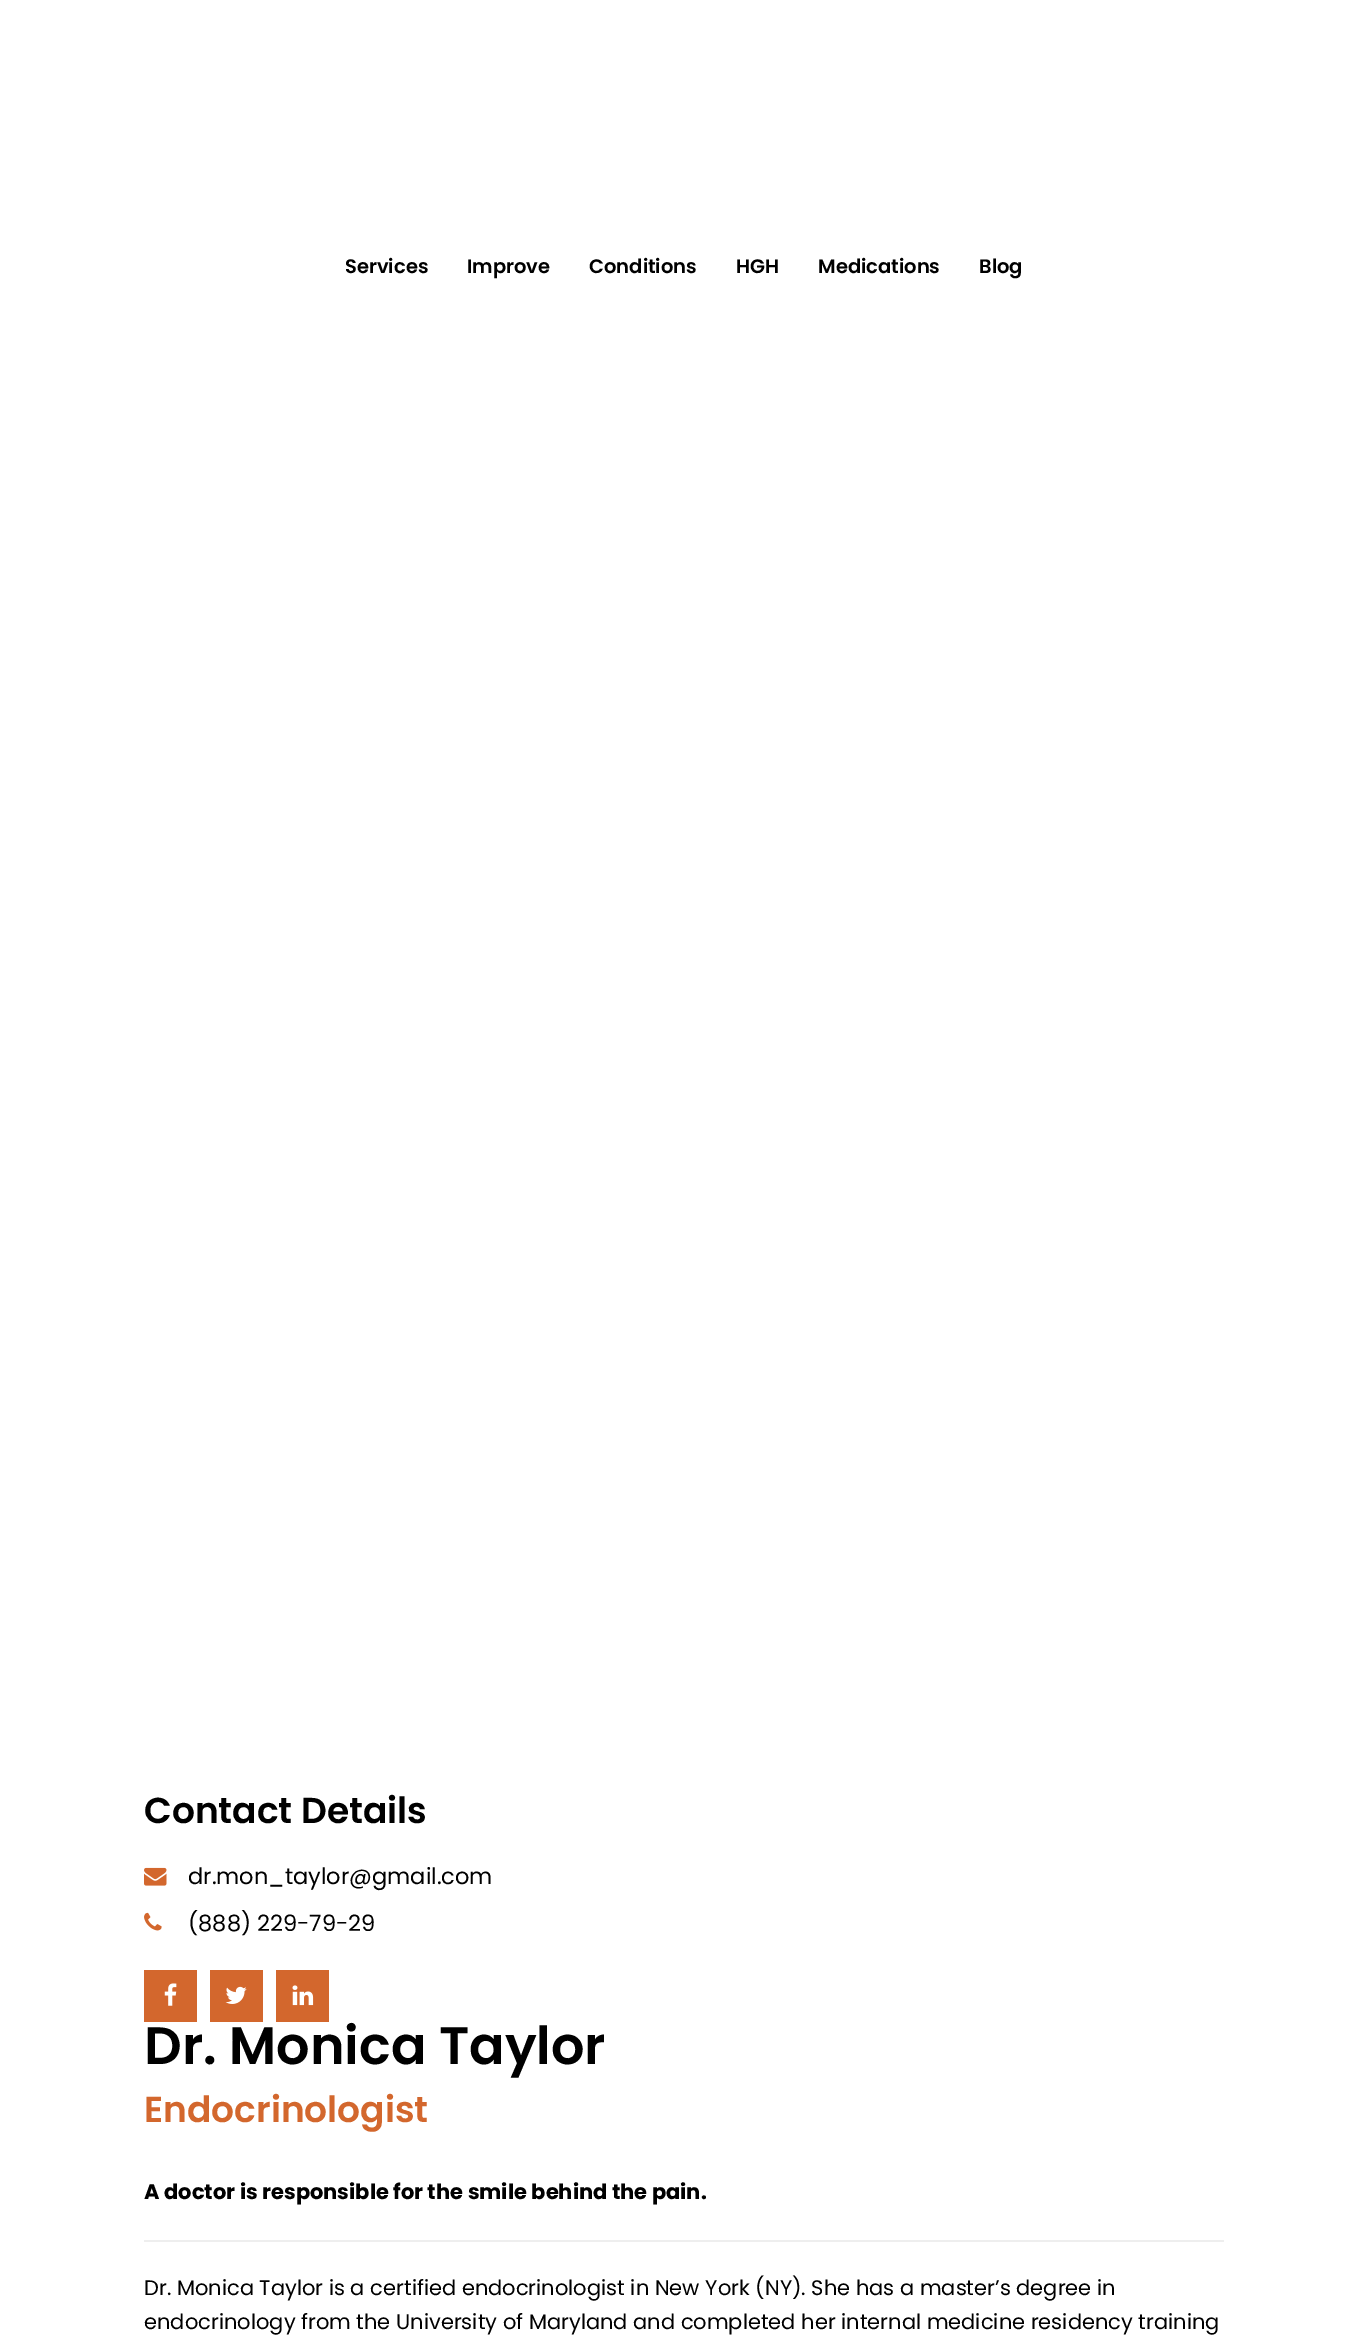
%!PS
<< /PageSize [1368 2351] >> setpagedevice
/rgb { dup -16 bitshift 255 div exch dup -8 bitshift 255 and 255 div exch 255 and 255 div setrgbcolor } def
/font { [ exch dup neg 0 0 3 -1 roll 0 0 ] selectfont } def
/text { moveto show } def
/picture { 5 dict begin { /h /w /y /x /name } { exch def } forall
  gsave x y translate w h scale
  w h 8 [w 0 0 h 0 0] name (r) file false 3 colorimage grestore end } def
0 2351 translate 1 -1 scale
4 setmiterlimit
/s1 { /Poppins-SemiBold 19.5 font 16#000000 rgb } def
/s2 { /Poppins-SemiBold 36 font 16#000000 rgb } def
/s3 { /Poppins-Regular 22.5 font 16#000000 rgb } def
/s4 { /Poppins-SemiBold 52.5 font 16#000000 rgb } def
/s5 { /Poppins-SemiBold 36 font 16#D3672D rgb } def
/s6 { /Poppins-Bold 21 font 16#000000 rgb } def
/s7 { /Poppins-Regular 21 font 16#000000 rgb } def
16#FFFFFF rgb
0 0 1368 2351 rectfill
s1
(Services) 345 273 text
(Improve) 467 273 text
(Conditions) 589 273 text
(HGH) 736 273 text
(Medications) 818 273 text
(Blog) 979 273 text
s2
(Contact Details) 144 1823 text
(pic1.raw) 144 1867 23 19 picture
s3
(dr.mon_taylor@gmail.com) 188 1884 text
(pic2.raw) 144 1912 18 19 picture
(\(888\) 229-79-29) 188 1931 text
16#D3672D rgb
144 1970 53 52 rectfill
(pic3.raw) 164 1983 13 23 picture
210 1970 53 52 rectfill
(pic4.raw) 225 1986 22 18 picture
276 1970 53 52 rectfill
(pic5.raw) 292 1985 22 21 picture
s4
(Dr. Monica Taylor) 144 2064 text
s5
(Endocrinologist) 144 2122 text
s6
(A doctor is responsible for the smile behind the pain.) 144 2199 text
16#EEEEEE rgb
144 2240 1080 2 rectfill
s7
(Dr. Monica Taylor is a certified endocrinologist in New York \(NY\). She has a master’s degree in) 144 2295 text
(endocrinology from the University of Maryland and completed her internal medicine residency training) 144 2329 text
showpage
